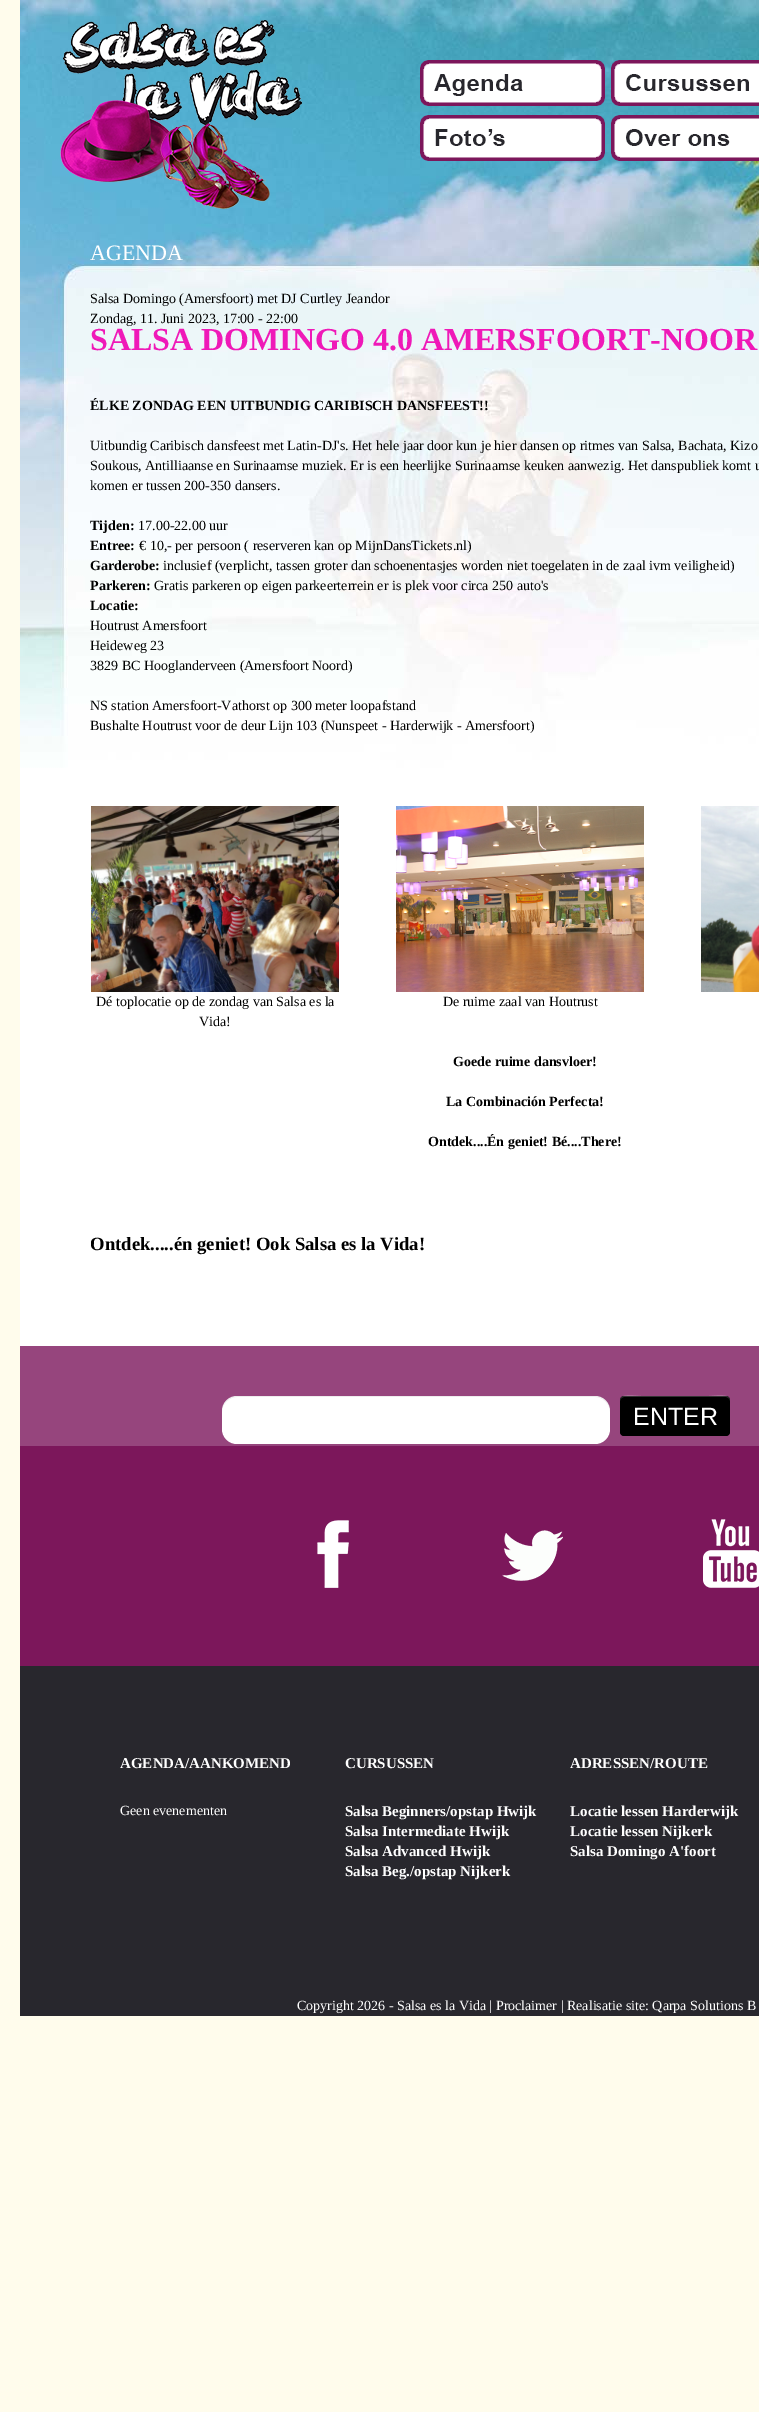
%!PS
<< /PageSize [759 2412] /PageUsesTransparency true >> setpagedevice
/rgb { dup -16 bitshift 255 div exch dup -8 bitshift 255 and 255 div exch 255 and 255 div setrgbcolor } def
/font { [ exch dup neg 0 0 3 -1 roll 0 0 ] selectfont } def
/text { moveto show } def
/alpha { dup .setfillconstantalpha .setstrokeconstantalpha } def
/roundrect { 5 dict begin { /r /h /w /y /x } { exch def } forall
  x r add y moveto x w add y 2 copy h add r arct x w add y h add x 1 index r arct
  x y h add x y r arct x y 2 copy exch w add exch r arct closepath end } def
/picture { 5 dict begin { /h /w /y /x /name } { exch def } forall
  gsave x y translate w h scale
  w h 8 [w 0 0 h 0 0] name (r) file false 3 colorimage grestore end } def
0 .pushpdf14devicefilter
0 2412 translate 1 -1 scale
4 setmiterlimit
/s1 { /LiberationSerif-Regular 22 font 16#FFFFFF rgb } def
/s2 { /LiberationSerif-Regular 14 font 16#000000 rgb } def
/s3 { /LiberationSerif-Bold 32 font 16#EF19B8 rgb } def
/s4 { /LiberationSerif-Bold 14 font 16#000000 rgb } def
/s5 { /LiberationSerif-Bold 18.7 font 16#000000 rgb } def
/s6 { /LiberationSans-Regular 25 font 16#FFFFFF rgb } def
/s7 { /LiberationSerif-Bold 15 font 16#FFFFFF rgb } def
/s8 { /LiberationSerif-Regular 14 font 16#FFFFFF rgb } def
16#FFFCEC rgb
0 0 759 2412 rectfill
16#FFFFFF rgb
20 768 739 578 rectfill
(pic1.raw) 20 0 739 768 picture
(pic2.raw) 60 20 242 189 picture
(pic3.raw) 420 60 185 46 picture
(pic4.raw) 611 60 148 46 picture
(pic5.raw) 420 115 185 46 picture
(pic6.raw) 611 115 148 46 picture
s1
(AGENDA) 90 260 text
s2
(Salsa Domingo \(Amersfoort\) met DJ Curtley Jeandor) 90 303 text
(Zondag, 11. Juni 2023, 17:00 - 22:00) 90 323 text
s3
(SALSA DOMINGO 4.0 AMERSFOORT-NOOR) 90 350 text
s4
(ÉLKE ZONDAG EEN UITBUNDIG CARIBISCH DANSFEEST!!) 90 410 text
s2
(Uitbundig Caribisch dansfeest met Latin-DJ's. Het hele jaar door kun je hier dansen op ritmes van Salsa, Bachata, Kizo) 90 450 text
(Soukous, Antilliaanse en Surinaamse muziek. Er is een heerlijke Surinaamse keuken aanwezig. Het danspubliek komt u) 90 470 text
(komen er tussen 200-350 dansers.) 90 490 text
s4
(Tijden:) 90 530 text
s2
(17.00-22.00 uur) 138 530 text
s4
(Entree:) 90 550 text
s2
(€ 10,- per persoon \( reserveren kan op MijnDansTickets.nl\)) 139 550 text
s4
(Garderobe:) 90 570 text
s2
(inclusief \(verplicht, tassen groter dan schoenentasjes worden niet toegelaten in de zaal ivm veiligheid\)) 163 570 text
s4
(Parkeren:) 90 590 text
s2
(Gratis parkeren op eigen parkeerterrein er is plek voor circa 250 auto's) 154 590 text
s4
(Locatie:) 90 610 text
s2
(Houtrust Amersfoort) 90 630 text
(Heideweg 23) 90 650 text
(3829 BC Hooglanderveen \(Amersfoort Noord\)) 90 670 text
(NS station Amersfoort-Vathorst op 300 meter loopafstand) 90 710 text
(Bushalte Houtrust voor de deur Lijn 103 \(Nunspeet - Harderwijk - Amersfoort\)) 90 730 text
(pic7.raw) 701 806 58 186 picture
(pic8.raw) 91 806 248 186 picture
(Dé toplocatie op de zondag van Salsa es la) 96 1006 text
(Vida!) 199 1026 text
(pic9.raw) 396 806 248 186 picture
(De ruime zaal van Houtrust) 443 1006 text
s4
(Goede ruime dansvloer!) 453 1066 text
(La Combinación Perfecta!) 446 1106 text
(Ontdek....Én geniet! Bé....There!) 428 1146 text
s5
(Ontdek.....én geniet! Ook Salsa es la Vida!) 90 1250 text
16#96457D rgb
20 1346 739 100 rectfill
16#FFFFFF rgb
222 1396 388 48 15 roundrect fill
0.07 alpha
16#000000 rgb
237 1397 moveto 595 1397 lineto 603 1397 610 1404 610 1412 curveto 610 1411 lineto 610 1403 603 1396 595 1396 curveto 237 1396 lineto 229 1396 222 1403 222 1411 curveto 222 1412 lineto 222 1404 229 1397 237 1397 curveto closepath fill
1 alpha
620 1396 110 40 4 roundrect fill
0.2 alpha
16#FFFFFF rgb
624 1397 moveto 726 1397 lineto 728 1397 730 1399 730 1401 curveto 730 1392 713 1396 709 1396 curveto 641 1396 lineto 637 1396 620 1392 620 1401 curveto 620 1399 622 1397 624 1397 curveto closepath fill
1 alpha
s6
(ENTER) 633 1425 text
16#7C175B rgb
20 1446 739 220 rectfill
(pic10.raw) 317 1520 32 68 picture
(pic11.raw) 502 1530 61 51 picture
(pic12.raw) 703 1519 56 69 picture
16#28272D rgb
20 1666 739 350 rectfill
s7
(AGENDA/AANKOMEND) 120 1768 text
s8
(Geen evenementen) 120 1815 text
s7
(CURSUSSEN) 345 1768 text
(Salsa Beginners/opstap Hwijk) 345 1816 text
(Salsa Intermediate Hwijk) 345 1836 text
(Salsa Advanced Hwijk) 345 1856 text
(Salsa Beg./opstap Nijkerk) 345 1876 text
(ADRESSEN/ROUTE) 570 1768 text
(Locatie lessen Harderwijk) 570 1816 text
(Locatie lessen Nijkerk) 570 1836 text
(Salsa Domingo A'foort) 570 1856 text
s8
(Copyright 2026 - Salsa es la Vida | Proclaimer | Realisatie site: Qarpa Solutions B) 297 2010 text
.poppdf14devicefilter showpage
